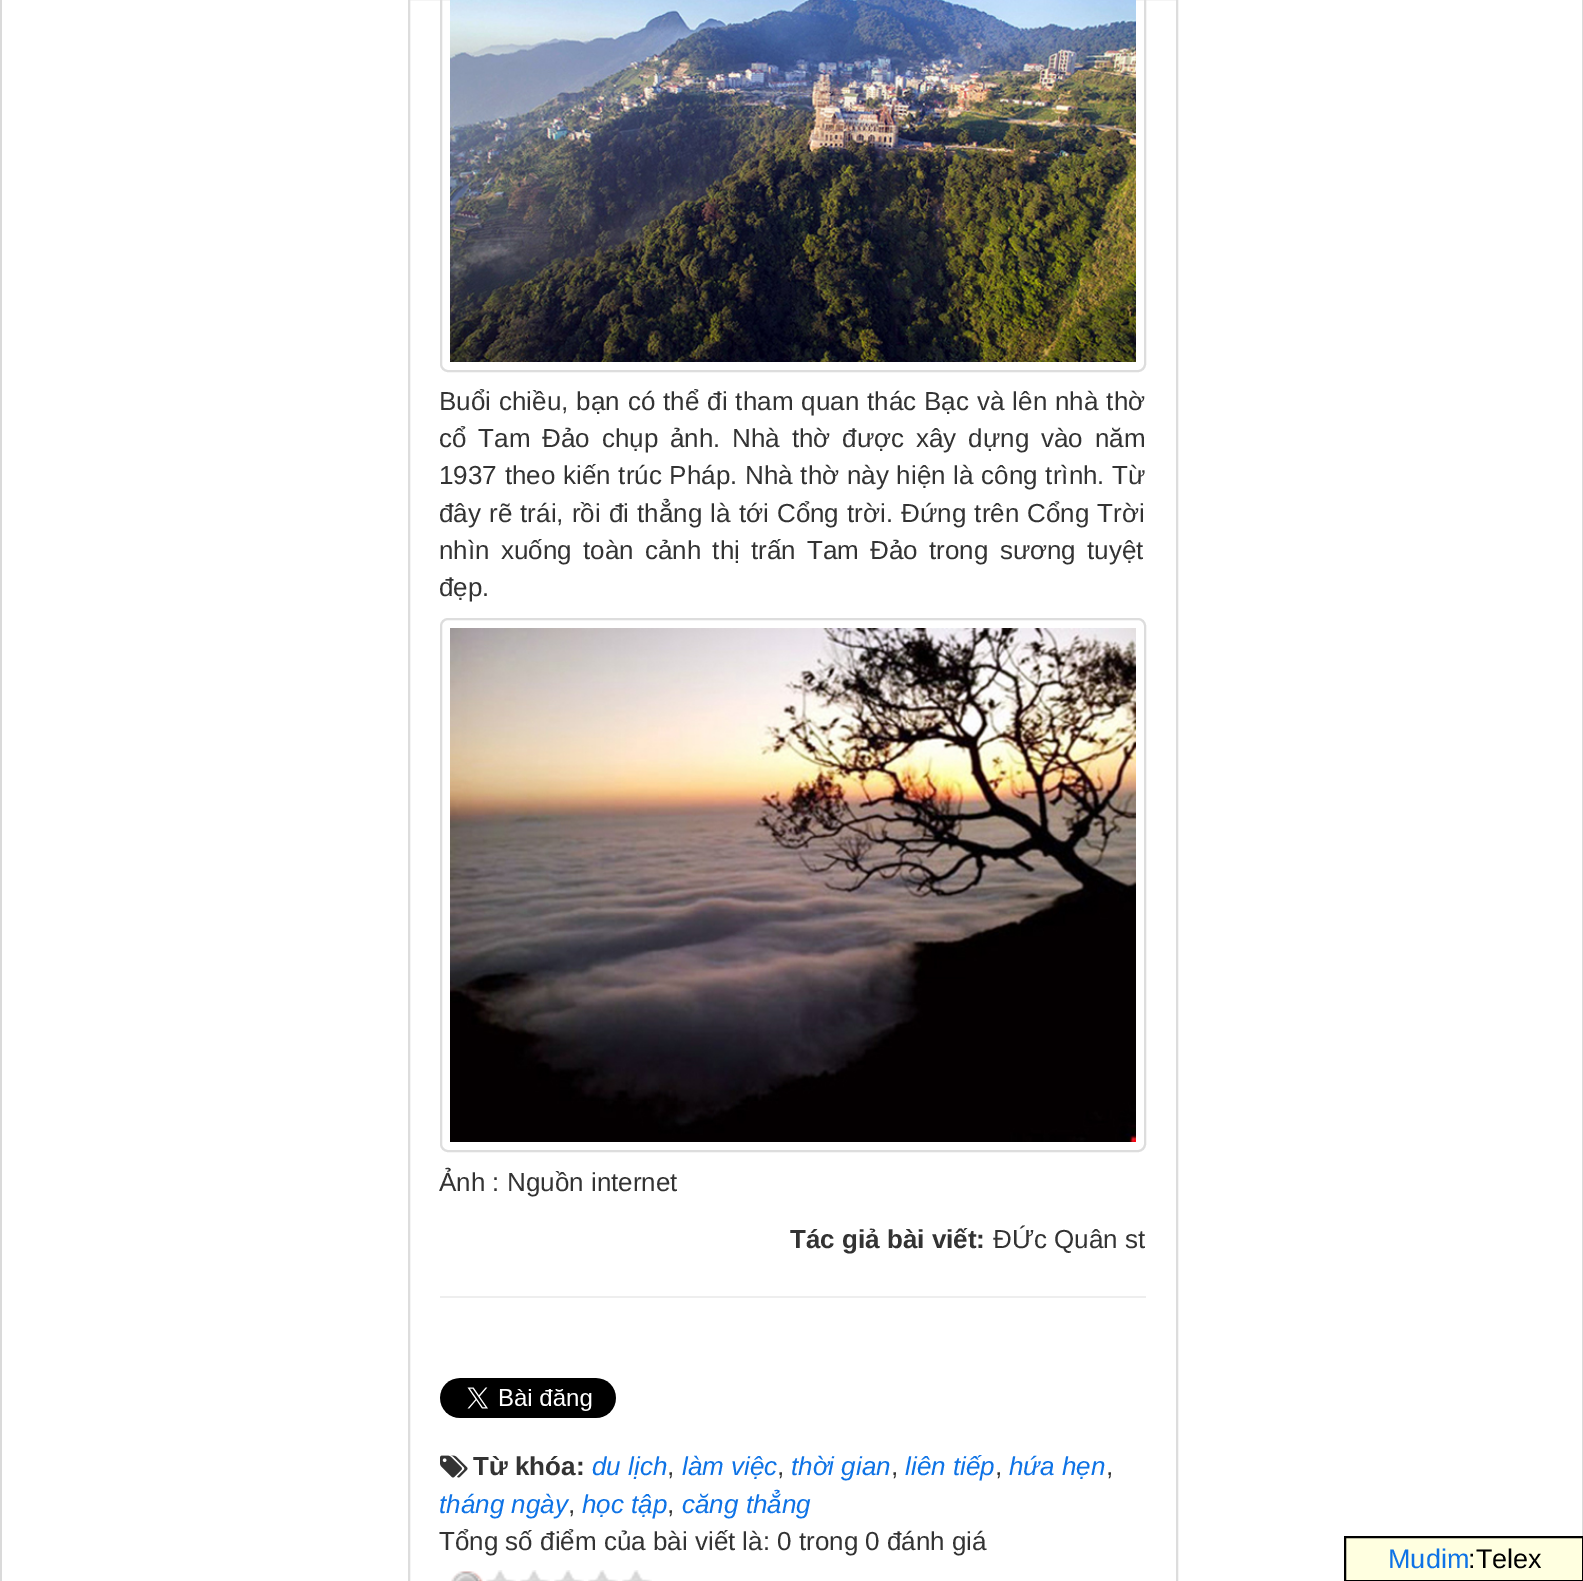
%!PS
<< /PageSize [1583 1581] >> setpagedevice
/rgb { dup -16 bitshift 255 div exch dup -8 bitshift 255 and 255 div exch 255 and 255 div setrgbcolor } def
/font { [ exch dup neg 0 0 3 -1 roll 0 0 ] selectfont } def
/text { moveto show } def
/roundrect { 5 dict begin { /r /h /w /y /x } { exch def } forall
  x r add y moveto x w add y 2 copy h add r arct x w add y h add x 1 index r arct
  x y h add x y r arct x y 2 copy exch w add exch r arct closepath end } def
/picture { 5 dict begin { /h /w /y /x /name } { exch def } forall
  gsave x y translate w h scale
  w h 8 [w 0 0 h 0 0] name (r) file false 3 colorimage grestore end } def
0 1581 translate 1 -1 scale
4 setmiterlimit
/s1 { /LiberationSans-Regular 26 font 16#333333 rgb } def
/s2 { /LiberationSans-Bold 26 font 16#333333 rgb } def
/s3 { /LiberationSans-Italic 26 font 16#0E73E6 rgb } def
/s4 { /LiberationSans-Regular 27 font 16#0E73E6 rgb } def
/s5 { /LiberationSans-Regular 27 font 16#000000 rgb } def
16#FFFFFF rgb
0 0 1583 1581 rectfill
16#DADADA rgb
1582 0 1 1536 rectfill
0 0 2 1581 rectfill
16#DDDDDD rgb
2 setlinewidth
409 -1 768 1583 rectstroke
441 -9 704 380 7 roundrect stroke
(pic1.raw) 450 0 686 362 picture
/LiberationSans-Regular 26 font
16#333333 rgb
439 410 moveto 0.75 0 32 (Buổi chiều, bạn có thể đi tham quan thác Bạc và lên nhà thờ) widthshow
439 447 moveto 4.6 0 32 (cổ Tam Đảo chụp ảnh. Nhà thờ được xây dựng vào năm) widthshow
439 484 moveto 0.5 0 32 (1937 theo kiến trúc Pháp. Nhà thờ này hiện là công trình. Từ) widthshow
439 522 moveto 0.9 0 32 (đây rẽ trái, rồi đi thẳng là tới Cổng trời. Ðứng trên Cổng Trời) widthshow
439 559 moveto 4 0 32 (nhìn xuống toàn cảnh thị trấn Tam Đảo trong sương tuyệt) widthshow
(đẹp.) 439 596 text
16#DDDDDD rgb
441 619 704 532 7 roundrect stroke
(pic2.raw) 450 628 686 514 picture
s1
(Ảnh : Nguồn internet) 439 1191 text
s2
(Tác giả bài viết:) 790 1248 text
s1
(ĐỨc Quân st) 993 1248 text
16#EEEEEE rgb
440 1296 706 2 rectfill
(pic3.raw) 440 1378 176 40 picture
(pic4.raw) 440 1455 28 23 picture
s2
(Từ khóa:) 473 1475 text
s3
(du lịch) 592 1475 text
s1
(,) 667 1475 text
s3
(làm việc) 682 1475 text
s1
(,) 777 1475 text
s3
(thời gian) 791 1475 text
s1
(,) 891 1475 text
s3
(liên tiếp) 905 1475 text
s1
(,) 995 1475 text
s3
(hứa hẹn) 1009 1475 text
s1
(,) 1106 1475 text
s3
(tháng ngày) 439 1513 text
s1
(,) 568 1513 text
s3
(học tập) 582 1513 text
s1
(,) 667 1513 text
s3
(căng thẳng) 682 1513 text
s1
(Tổng số điểm của bài viết là: 0 trong 0 đánh giá) 439 1550 text
(pic5.raw) 451 1571 32 10 picture
(pic6.raw) 451 1571 30 10 picture
(pic7.raw) 486 1570 30 11 picture
(pic7.raw) 520 1570 30 11 picture
(pic7.raw) 554 1570 30 11 picture
(pic7.raw) 588 1570 30 11 picture
(pic7.raw) 622 1570 30 11 picture
16#FFFFE0 rgb
1345 1537 moveto 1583 1537 lineto 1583 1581 lineto 1345 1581 lineto closepath gsave fill grestore
16#000000 rgb
stroke
s4
(Mudim) 1388 1568 text
s5
(:Telex) 1468 1568 text
showpage
